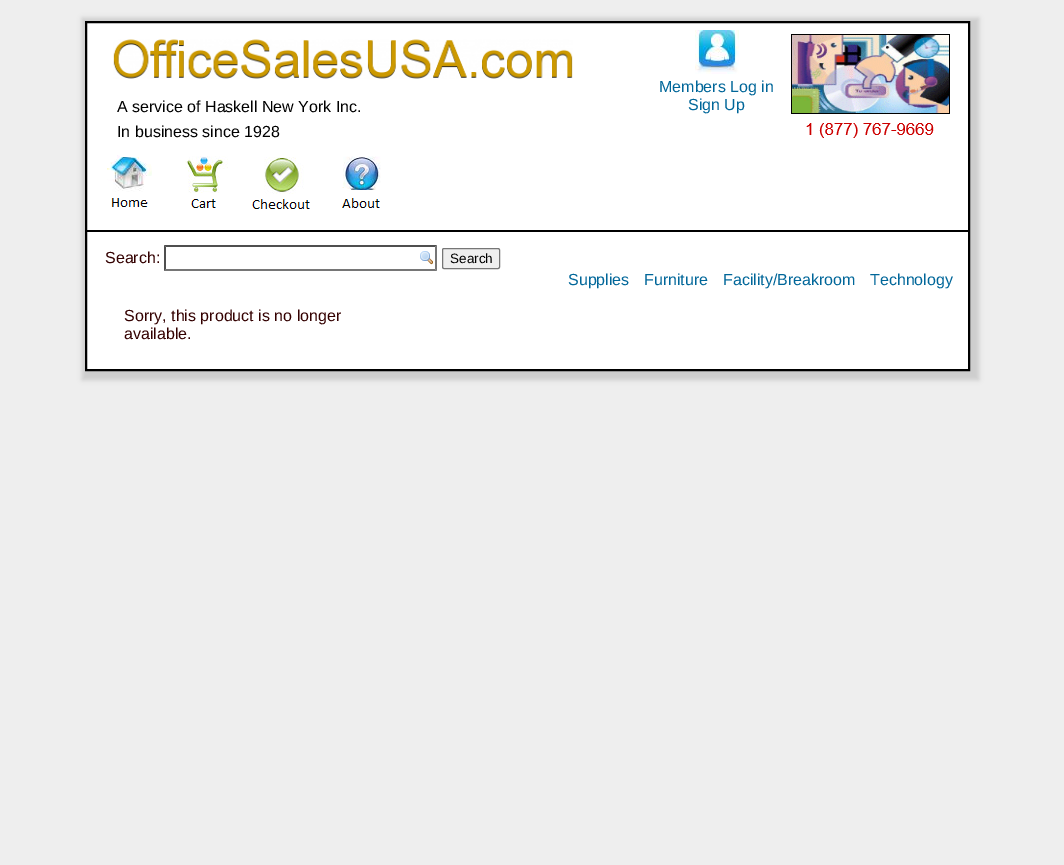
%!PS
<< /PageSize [1064 865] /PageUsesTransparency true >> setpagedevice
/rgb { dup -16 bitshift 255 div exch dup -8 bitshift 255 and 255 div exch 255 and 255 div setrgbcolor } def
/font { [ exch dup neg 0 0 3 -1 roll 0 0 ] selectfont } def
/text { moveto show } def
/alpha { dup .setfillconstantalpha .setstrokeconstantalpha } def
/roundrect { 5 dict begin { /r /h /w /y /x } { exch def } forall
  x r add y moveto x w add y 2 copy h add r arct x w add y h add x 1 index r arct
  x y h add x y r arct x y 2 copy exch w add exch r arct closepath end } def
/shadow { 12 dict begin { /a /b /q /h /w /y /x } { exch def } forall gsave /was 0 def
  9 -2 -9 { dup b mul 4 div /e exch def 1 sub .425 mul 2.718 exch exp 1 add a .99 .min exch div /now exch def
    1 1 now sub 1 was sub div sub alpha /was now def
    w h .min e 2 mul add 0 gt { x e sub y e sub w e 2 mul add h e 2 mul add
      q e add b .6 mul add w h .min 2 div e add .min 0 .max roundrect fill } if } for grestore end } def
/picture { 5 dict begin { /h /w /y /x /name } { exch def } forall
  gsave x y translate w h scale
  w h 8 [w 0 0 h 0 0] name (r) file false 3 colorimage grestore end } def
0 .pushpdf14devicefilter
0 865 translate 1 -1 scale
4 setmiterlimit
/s1 { /LiberationSans-Regular 16 font 16#000000 rgb } def
/s2 { /LiberationSans-Regular 16 font 16#006699 rgb } def
/s3 { /LiberationSans-Regular 16 font 16#330000 rgb } def
/s4 { /LiberationSans-Regular 13.5 font 16#000000 rgb } def
16#EEEEEE rgb
0 0 1064 865 rectfill
16#CCCCCC rgb
82 18 897 362 0 2.5 1 shadow
16#FFFFFF rgb
86 22 moveto 969 22 lineto 969 370 lineto 86 370 lineto closepath gsave fill grestore
16#000000 rgb
2 setlinewidth
stroke
(pic1.raw) 113 39 460 40 picture
s1
(A service of Haskell New York Inc.) 117 112 text
(In business since 1928) 117 137 text
(pic2.raw) 695 30 44 44 picture
s2
(Members Log in) 659 92 text
(Sign Up) 688 110 text
(pic3.raw) 791 34 159 104 picture
(pic4.raw) 107 155 45 52 picture
(pic5.raw) 185 156 43 52 picture
(pic6.raw) 252 157 58 52 picture
(pic7.raw) 342 156 39 52 picture
16#000000 rgb
87 230 881 2 rectfill
s3
(Search:) 105 263 text
(pic8.raw) 420 251 13 14 picture
16#4F4F4F rgb
164 245 moveto 437 245 lineto 435 247 lineto 166 247 lineto closepath fill
16#767676 rgb
437 245 moveto 437 271 lineto 435 269 lineto 435 247 lineto closepath fill
437 271 moveto 164 271 lineto 166 269 lineto 435 269 lineto closepath fill
16#4F4F4F rgb
164 271 moveto 164 245 lineto 166 247 lineto 166 269 lineto closepath fill
16#EFEFEF rgb
442.5 248.5 57 20 1.5 roundrect gsave fill grestore
16#767676 rgb
1 setlinewidth
stroke
s4
(Search) 450 263 text
s2
(Supplies) 568 285 text
(Furniture) 644 285 text
(Facility/Breakroom) 723 285 text
(Technology) 870 285 text
s3
(Sorry, this product is no longer) 124 321 text
(available.) 124 339 text
.poppdf14devicefilter showpage
